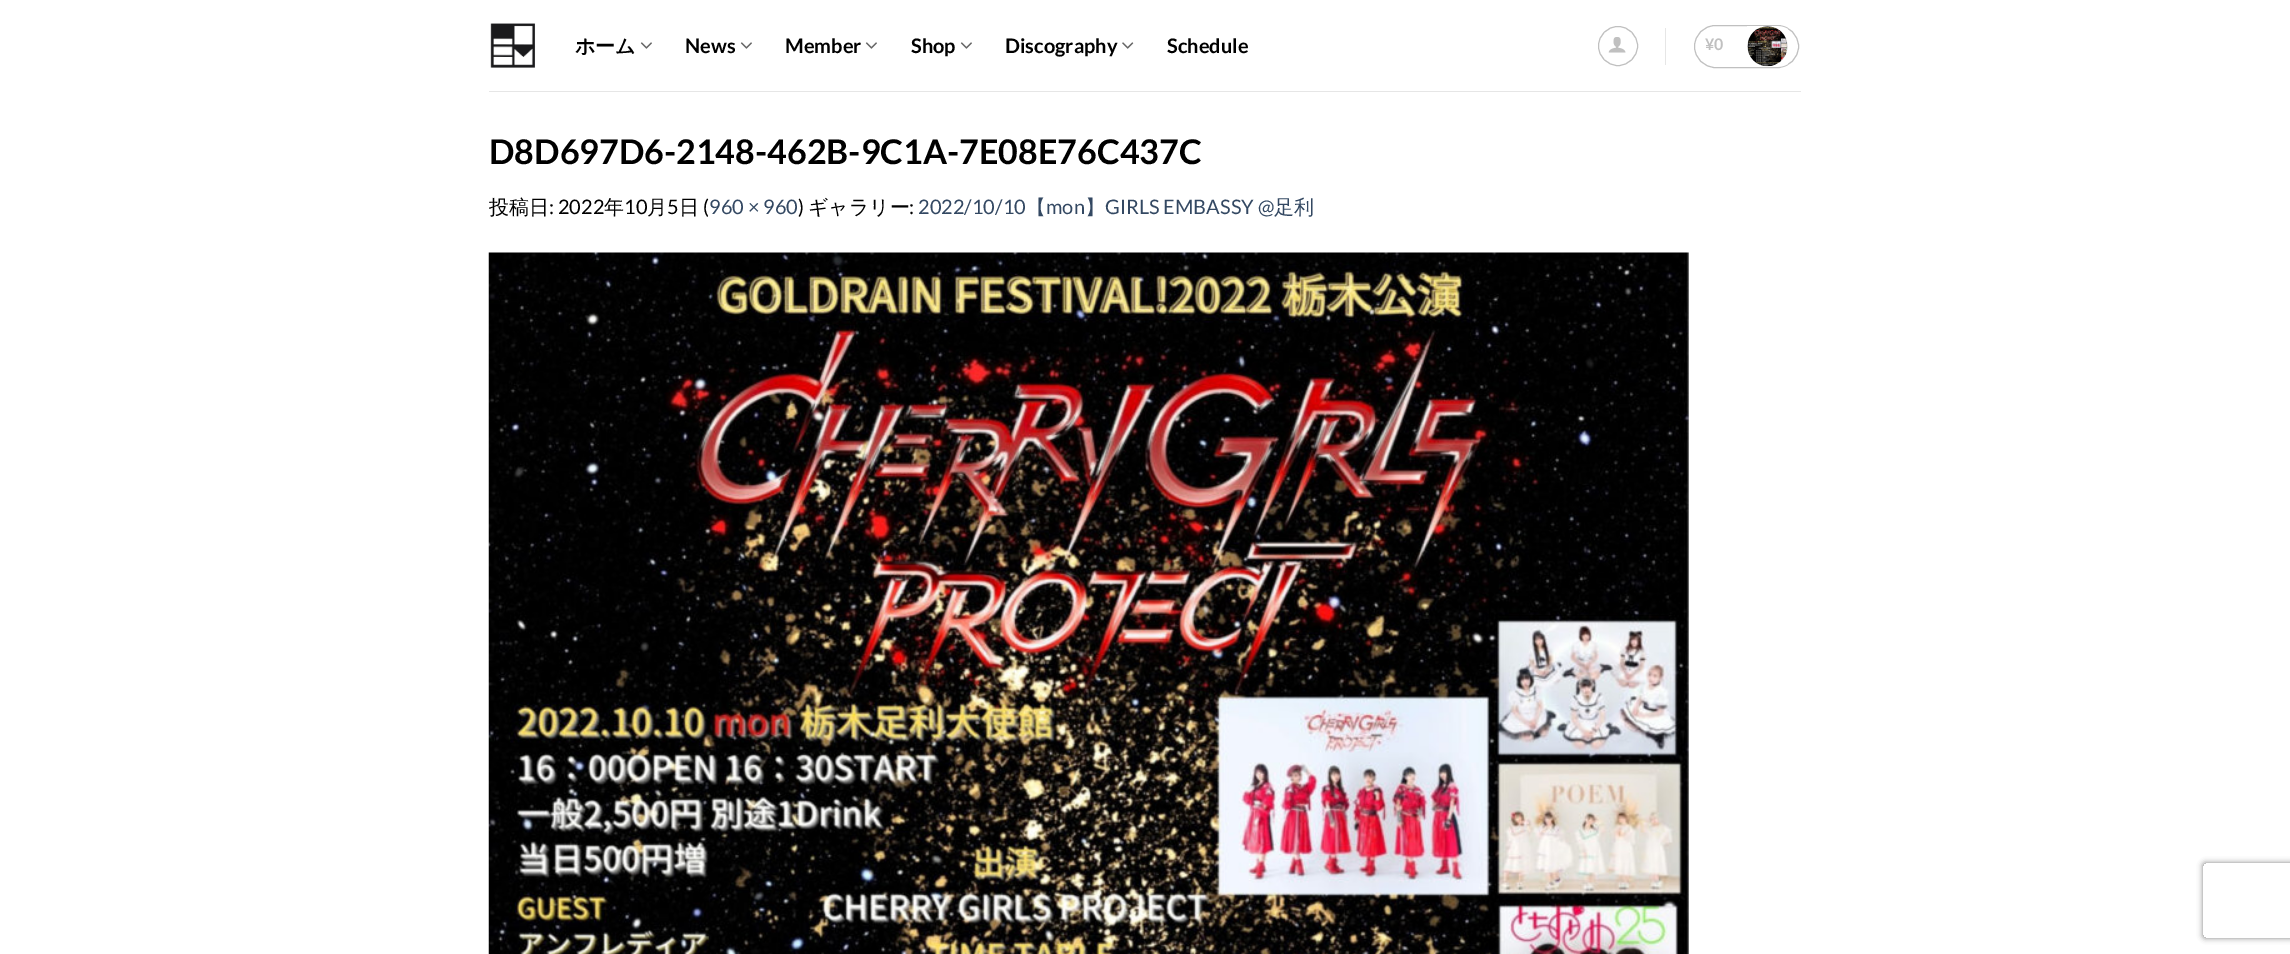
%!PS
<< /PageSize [2290 954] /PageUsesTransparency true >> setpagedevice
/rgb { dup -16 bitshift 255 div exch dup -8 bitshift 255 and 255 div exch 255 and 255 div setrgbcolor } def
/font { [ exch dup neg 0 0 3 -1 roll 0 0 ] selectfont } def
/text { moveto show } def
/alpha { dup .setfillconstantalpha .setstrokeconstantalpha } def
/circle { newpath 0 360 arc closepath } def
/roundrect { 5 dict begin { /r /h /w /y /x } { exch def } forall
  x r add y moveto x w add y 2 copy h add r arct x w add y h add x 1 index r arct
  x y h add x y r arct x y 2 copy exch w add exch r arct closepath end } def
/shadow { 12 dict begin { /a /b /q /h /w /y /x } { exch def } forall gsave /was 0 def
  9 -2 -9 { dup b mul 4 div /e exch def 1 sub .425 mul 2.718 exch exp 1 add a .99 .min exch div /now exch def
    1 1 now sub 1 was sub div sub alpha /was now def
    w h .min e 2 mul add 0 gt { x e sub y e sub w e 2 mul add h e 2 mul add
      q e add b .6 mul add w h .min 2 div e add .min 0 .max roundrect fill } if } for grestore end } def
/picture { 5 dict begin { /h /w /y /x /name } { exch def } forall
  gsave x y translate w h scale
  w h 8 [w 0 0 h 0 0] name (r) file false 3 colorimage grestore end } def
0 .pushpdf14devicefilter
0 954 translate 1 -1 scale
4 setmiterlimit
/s1 { /WenQuanYiZenHei-Bold 20 font 16#000000 rgb } def
/s2 { /Lato-Bold 20 font 16#000000 rgb } def
/s3 { /Lato-Bold 16 font 16#C0C0C0 rgb } def
/s4 { /Lato-Bold 34 font 16#000000 rgb } def
/s5 { /WenQuanYiZenHei-Medium 20 font 16#000000 rgb } def
/s6 { /Lato-Regular 20 font 16#000000 rgb } def
/s7 { /Lato-Regular 20 font 16#334862 rgb } def
/s8 { /WenQuanYiZenHei-Medium 20 font 16#334862 rgb } def
16#FFFFFF rgb
0 0 2290 954 rectfill
(pic1.raw) 490 23 46 45 picture
s1
(ホーム) 575 53 text
(pic2.raw) 640 42 12 7 picture
s2
(News) 685 53 text
(pic2.raw) 740 42 12 7 picture
(Member) 785 53 text
(pic2.raw) 865 42 12 7 picture
(Shop) 911 53 text
(pic2.raw) 960 42 12 7 picture
(Discography) 1005 53 text
(pic3.raw) 1122 42 12 7 picture
(Schedule) 1167 53 text
16#C0C0C0 rgb
1618 46 19.5 circle stroke
(pic4.raw) 1608 37 18 16 picture
16#E6E6E6 rgb
1665 28 1 37 rectfill
16#C0C0C0 rgb
1694.5 25.5 104 42 21 roundrect stroke
s3
(¥0) 1705 50 text
(pic5.raw) 1747 26 41 41 picture
16#E6E6E6 rgb
489 91 1312 1 rectfill
s4
(D8D697D6-2148-462B-9C1A-7E08E76C437C) 489 164 text
s5
(投稿日) 489 214 text
s6
(: 2022) 549 214 text
s5
(年) 604 214 text
s6
(10) 624 214 text
s5
(月) 647 214 text
s6
(5) 667 214 text
s5
(日) 679 214 text
s6
(\() 703 214 text
s7
(960 × 960) 709 214 text
s6
(\)) 798 214 text
s5
(ギャラリー) 808 214 text
s6
(:) 909 214 text
s7
(2022/10/10) 918 214 text
s8
(【) 1026 214 text
s7
(mon) 1046 214 text
s8
(】) 1085 214 text
s7
(GIRLS EMBASSY @) 1105 214 text
s8
(足利) 1274 214 text
(pic6.raw) 488 252 1201 702 picture
gsave
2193 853 moveto 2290 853 lineto 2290 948 lineto 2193 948 lineto closepath 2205.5 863 moveto 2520.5 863 lineto 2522 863 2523 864 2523 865.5 curveto 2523 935.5 lineto 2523 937 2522 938 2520.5 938 curveto 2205.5 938 lineto 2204 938 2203 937 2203 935.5 curveto 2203 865.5 lineto 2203 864 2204 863 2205.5 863 curveto closepath eoclip newpath
16#808080 rgb
2203 863 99 75 2.5 3 1 shadow
grestore
.poppdf14devicefilter showpage
